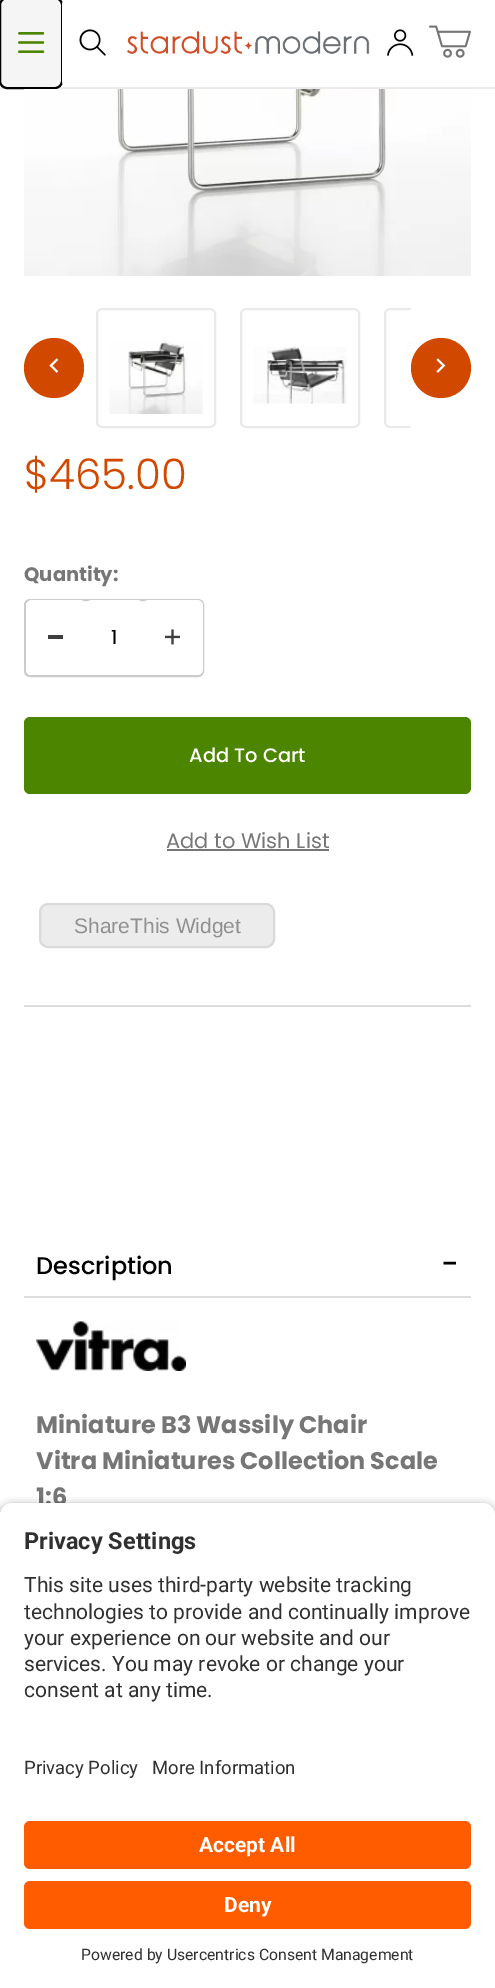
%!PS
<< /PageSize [495 1988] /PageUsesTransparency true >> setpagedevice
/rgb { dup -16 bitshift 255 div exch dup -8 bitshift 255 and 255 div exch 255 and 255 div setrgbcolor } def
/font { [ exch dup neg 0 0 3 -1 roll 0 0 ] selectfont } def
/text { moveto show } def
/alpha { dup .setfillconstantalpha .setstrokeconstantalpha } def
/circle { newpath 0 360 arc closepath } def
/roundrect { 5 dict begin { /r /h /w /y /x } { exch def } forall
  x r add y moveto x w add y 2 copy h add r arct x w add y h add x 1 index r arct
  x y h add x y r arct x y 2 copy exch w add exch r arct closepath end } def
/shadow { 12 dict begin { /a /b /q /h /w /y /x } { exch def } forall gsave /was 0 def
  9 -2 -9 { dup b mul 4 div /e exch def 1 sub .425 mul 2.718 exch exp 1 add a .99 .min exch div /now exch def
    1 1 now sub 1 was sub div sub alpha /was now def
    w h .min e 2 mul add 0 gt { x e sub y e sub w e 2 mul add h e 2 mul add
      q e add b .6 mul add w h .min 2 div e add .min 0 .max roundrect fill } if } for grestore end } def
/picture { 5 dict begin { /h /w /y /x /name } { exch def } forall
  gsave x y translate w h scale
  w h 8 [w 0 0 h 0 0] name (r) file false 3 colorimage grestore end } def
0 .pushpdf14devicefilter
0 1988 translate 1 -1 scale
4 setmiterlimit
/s1 { /Poppins-Light 42 font 16#D14900 rgb } def
/s2 { /Poppins-Bold 19.5 font 16#767676 rgb } def
/s3 { /Poppins-Regular 19.5 font 16#000000 rgb } def
/s4 { /Poppins-Medium 19.5 font 16#FFFFFF rgb } def
/s5 { /Poppins-Regular 21 font 16#767676 rgb } def
/s6 { /LiberationSans-Regular 21 font 16#909090 rgb } def
/s7 { /Poppins-Medium 24 font 16#000000 rgb } def
/s8 { /Poppins-Medium 30 font 16#000000 rgb } def
/s9 { /Poppins-Bold 24 font 16#767676 rgb } def
/s10 { /Roboto-Bold 23.5 font 16#303030 rgb } def
/s11 { /Roboto-Regular 21 font 16#303030 rgb } def
/s12 { /Roboto-Regular 18.5 font 16#303030 rgb } def
/s13 { /Roboto-Bold 21 font 16#FFFFFF rgb } def
/s14 { /Roboto-Regular 15.75 font 16#303030 rgb } def
16#FFFFFF rgb
0 0 495 1988 rectfill
16#EAEAEA rgb
0 87 495 2 rectfill
16#F5F5F5 rgb
0 -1 62 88 6 roundrect fill
(pic1.raw) 18 32 27 21 picture
16#010101 rgb
2 setlinewidth
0 -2 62 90 7 roundrect stroke
16#FFFFFF rgb
62 -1 63 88 6 roundrect fill
(pic2.raw) 79 29 27 27 picture
(pic3.raw) 126 31 244 23 picture
(pic4.raw) 387 29 27 27 picture
(pic5.raw) 429 25 42 33 picture
(pic6.raw) 24 89 447 187 picture
16#EAEAEA rgb
97 309 118 118 5 roundrect stroke
(pic7.raw) 109 340 94 74 picture
241 309 118 118 5 roundrect stroke
(pic8.raw) 253 347 94 57 picture
16#D14900 rgb
441 368 30 circle fill
(pic11.raw) 436 358 10 15 picture
gsave
84 308 327 120 rectclip
16#EAEAEA rgb
385 309 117 118 5 roundrect stroke
grestore
(pic9.raw) 407 340 4 51 picture
54 368 30 circle fill
(pic10.raw) 49 358 10 15 picture
s1
($465.00) 24 489 text
s2
(Quantity:) 24 581 text
16#CCCCCC rgb
25 600 178 76 5 roundrect stroke
16#FFFFFF rgb
26 600 60 75 6 roundrect fill
16#3E3E3E rgb
48 635 15 4 rectfill
16#FFFFFF rgb
86 600 57 75 6 roundrect fill
s3
(1) 111 644 text
16#FFFFFF rgb
143 600 60 75 6 roundrect fill
(pic12.raw) 165 629 15 16 picture
16#4C8500 rgb
24 717 447 77 6 roundrect fill
s4
(Add To Cart) 189 762 text
s5
(Add to Wish List) 166 848 text
167 849 162 2 rectfill
16#ECECEC rgb
40 904 234 43 8 roundrect gsave fill grestore
16#DADADA rgb
stroke
s6
(ShareThis Widget) 74 933 text
16#DDDDDD rgb
24 1005 447 2 rectfill
24 1296 447 2 rectfill
s7
(Description) 36 1274 text
s8
(-) 441 1274 text
(pic13.raw) 36 1321 150 50 picture
s9
(Miniature B3 Wassily Chair) 36 1433 text
(Vitra Miniatures Collection Scale) 36 1469 text
(1:6) 36 1505 text
16#000000 rgb
0 1508 495 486 12 5 0.8 shadow
16#FFFFFF rgb
12 1503 moveto 483 1503 lineto 489.5 1503 495 1508.5 495 1515 curveto 495 1734 lineto 0 1734 lineto 0 1515 lineto 0 1508.5 5.5 1503 12 1503 curveto closepath fill
s10
(Privacy Settings) 24 1549 text
s11
(This site uses third-party website tracking) 24 1592 text
(technologies to provide and continually improve) 24 1619 text
(your experience on our website and our) 24 1645 text
(services. You may revoke or change your) 24 1671 text
(consent at any time.) 24 1697 text
16#FFFFFF rgb
0 1734 495 254 rectfill
s12
(Privacy Policy) 24 1774 text
(More Information) 152 1774 text
16#FF5C00 rgb
24 1821 447 48 6 roundrect fill
s13
(Accept All) 199 1852 text
16#FF5C00 rgb
24 1881 447 48 6 roundrect fill
s13
(Deny) 224 1912 text
s14
(Powered by Usercentrics Consent Management) 81 1960 text
.poppdf14devicefilter showpage
